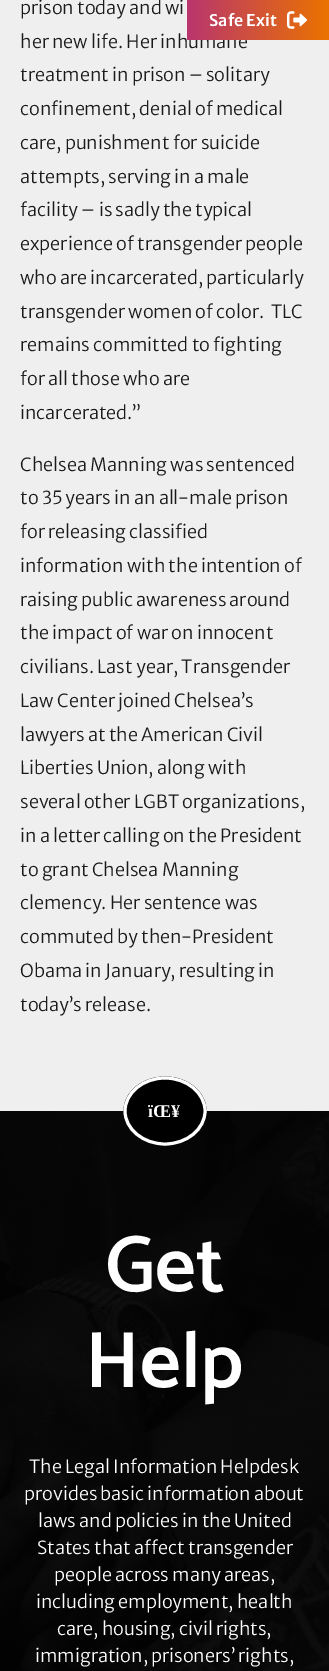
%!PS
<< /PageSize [329 1671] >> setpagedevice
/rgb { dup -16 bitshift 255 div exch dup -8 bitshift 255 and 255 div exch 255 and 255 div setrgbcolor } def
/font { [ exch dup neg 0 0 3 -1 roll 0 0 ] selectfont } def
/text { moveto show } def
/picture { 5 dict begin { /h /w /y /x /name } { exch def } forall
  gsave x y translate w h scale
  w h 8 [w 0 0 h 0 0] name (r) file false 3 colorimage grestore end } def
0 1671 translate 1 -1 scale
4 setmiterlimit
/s1 { /MerriweatherSans-Light 18 font 16#1A1A1A rgb } def
/s2 { /MerriweatherSans-SemiBold 16 font 16#FFFFFF rgb } def
/s3 { /LiberationSerif-Bold 18 font 16#FFFFFF rgb } def
/s4 { /Catamaran-SemiBold 80 font 16#FFFFFF rgb } def
/s5 { /MerriweatherSans-Light 18 font 16#FFFFFF rgb } def
16#EFEFEF rgb
0 0 329 1671 rectfill
s1
(prison today and wi) 20 14 text
(her new life. Her inhumane) 20 48 text
(treatment in prison – solitary) 20 81 text
(confinement, denial of medical) 20 115 text
(care, punishment for suicide) 20 149 text
(attempts, serving in a male) 20 183 text
(facility – is sadly the typical) 20 216 text
(experience of transgender people) 20 250 text
(who are incarcerated, particularly) 20 284 text
(transgender women of color.  TLC) 20 318 text
(remains committed to fighting) 20 351 text
(for all those who are) 20 385 text
(incarcerated.”) 20 419 text
(Chelsea Manning was sentenced) 20 471 text
(to 35 years in an all-male prison) 20 504 text
(for releasing classified) 20 538 text
(information with the intention of) 20 572 text
(raising public awareness around) 20 606 text
(the impact of war on innocent) 20 639 text
(civilians. Last year, Transgender) 20 673 text
(Law Center joined Chelsea’s) 20 707 text
(lawyers at the American Civil) 20 741 text
(Liberties Union, along with) 20 774 text
(several other LGBT organizations,) 20 808 text
(in a letter calling on the President) 20 842 text
(to grant Chelsea Manning) 20 876 text
(clemency. Her sentence was) 20 909 text
(commuted by then-President) 20 943 text
(Obama in January, resulting in) 20 977 text
(today’s release.) 20 1011 text
gsave 189 2 moveto 327 2 lineto 327 38 lineto 189 38 lineto closepath clip newpath
<< /ShadingType 2 /ColorSpace /DeviceRGB /Coords [189 20 327 20] /Extend [true true] /Function << /FunctionType 2 /Domain [0 1] /C0 [0.725 0.212 0.424] /C1 [0.918 0.443 0] /N 1 >> >> shfill grestore
(pic1.raw) 187 0 142 40 picture
s2
(Safe Exit) 209 26 text
(pic2.raw) 287 11 20 18 picture
(pic3.raw) 0 1111 329 560 picture
16#000000 rgb
165 1076.5 moveto 188 1076.5 206.5 1092 206.5 1111 curveto 206.5 1130 188 1145.5 165 1145.5 curveto 142 1145.5 123.5 1130 123.5 1111 curveto 123.5 1092 142 1076.5 165 1076.5 curveto closepath fill
16#FFFFFF rgb
3 setlinewidth
165 1078 moveto 187 1078 205 1093 205 1111 curveto 205 1129 187 1144 165 1144 curveto 143 1144 125 1129 125 1111 curveto 125 1093 143 1078 165 1078 curveto closepath stroke
s3
(ïŒ¥) 148 1117 text
s4
(Get) 105 1291 text
(Help) 85 1387 text
s5
(The Legal Information Helpdesk) 29 1473 text
(provides basic information about) 24 1500 text
(laws and policies in the United) 38 1527 text
(States that affect transgender) 37 1554 text
(people across many areas,) 54 1581 text
(including employment, health) 36 1608 text
(care, housing, civil rights,) 57 1635 text
(immigration, prisoners’ rights,) 35 1662 text
showpage
